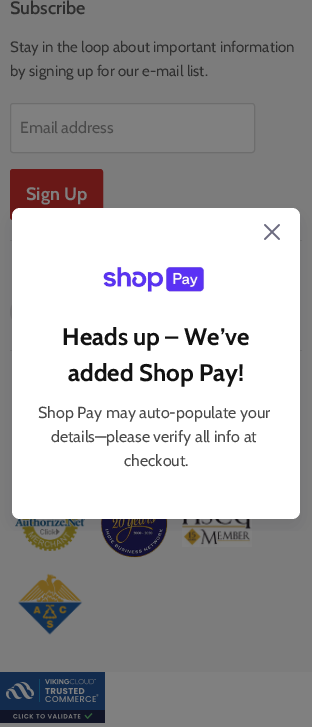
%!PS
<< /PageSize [312 727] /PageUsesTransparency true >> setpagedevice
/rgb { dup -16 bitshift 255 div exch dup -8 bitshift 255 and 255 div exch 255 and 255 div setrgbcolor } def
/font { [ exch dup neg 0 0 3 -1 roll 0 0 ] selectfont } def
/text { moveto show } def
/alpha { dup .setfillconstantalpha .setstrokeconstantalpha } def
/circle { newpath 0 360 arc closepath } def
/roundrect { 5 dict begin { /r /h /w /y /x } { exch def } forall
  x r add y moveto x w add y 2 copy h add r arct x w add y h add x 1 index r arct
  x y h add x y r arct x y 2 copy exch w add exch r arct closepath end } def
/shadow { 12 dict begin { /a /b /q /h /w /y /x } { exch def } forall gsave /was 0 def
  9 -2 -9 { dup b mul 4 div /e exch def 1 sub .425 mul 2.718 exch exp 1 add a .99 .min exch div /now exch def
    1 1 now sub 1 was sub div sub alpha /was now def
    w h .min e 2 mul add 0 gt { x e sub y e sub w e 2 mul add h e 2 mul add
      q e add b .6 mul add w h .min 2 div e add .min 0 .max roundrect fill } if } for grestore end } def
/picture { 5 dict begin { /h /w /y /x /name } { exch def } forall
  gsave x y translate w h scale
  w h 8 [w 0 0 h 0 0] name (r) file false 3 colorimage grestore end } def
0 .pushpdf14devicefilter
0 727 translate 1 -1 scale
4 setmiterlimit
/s1 { /Cabin-SemiBold 18 font 16#2E2E2E rgb } def
/s2 { /Cabin-Regular 15 font 16#2E2E2E rgb } def
/s3 { /Cabin-Regular 16 font 16#4A4A4A rgb } def
/s4 { /Cabin-Bold 18 font 16#808080 rgb } def
/s5 { /Cabin-Bold 24 font 16#121212 rgb } def
16#808080 rgb
0 0 312 727 rectfill
16#7C7C7C rgb
0 0 312 672 rectfill
16#717171 rgb
10 240 292 1 rectfill
s1
(Subscribe) 10 14 text
s2
(Stay in the loop about important information) 10 52 text
(by signing up for our e-mail list.) 10 76 text
16#808080 rgb
10 103 245 50 3 roundrect fill
0.3 alpha
16#404040 rgb
10.5 103.5 244 49 2.5 roundrect stroke
1 alpha
s3
(Email address) 20 133 text
16#691817 rgb
10.5 169.5 92 50 2.5 roundrect gsave fill grestore
stroke
s4
(Sign Up) 26 200 text
16#717171 rgb
10 350 292 1 rectfill
24 312 14 circle fill
(pic1.raw) 15 518 70 33 picture
(pic2.raw) 100 519 68 39 picture
(pic3.raw) 182 519 70 28 picture
(pic4.raw) 18 573 65 62 picture
gsave
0 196 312 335 rectclip
16#121127 rgb
12 216 288 311 8 10 0.1 shadow
grestore
16#FFFFFF rgb
12 208 288 311 8 roundrect fill
(pic5.raw) 264 224 16 16 picture
(pic6.raw) 103 265 102 27 picture
s5
(Heads up – We’ve) 62 345 text
(added Shop Pay!) 68 381 text
s3
(Shop Pay may auto-populate your) 38 418 text
(details—please verify all info at) 51 442 text
(checkout.) 124 466 text
(pic7.raw) 0 672 105 51 picture
.poppdf14devicefilter showpage
